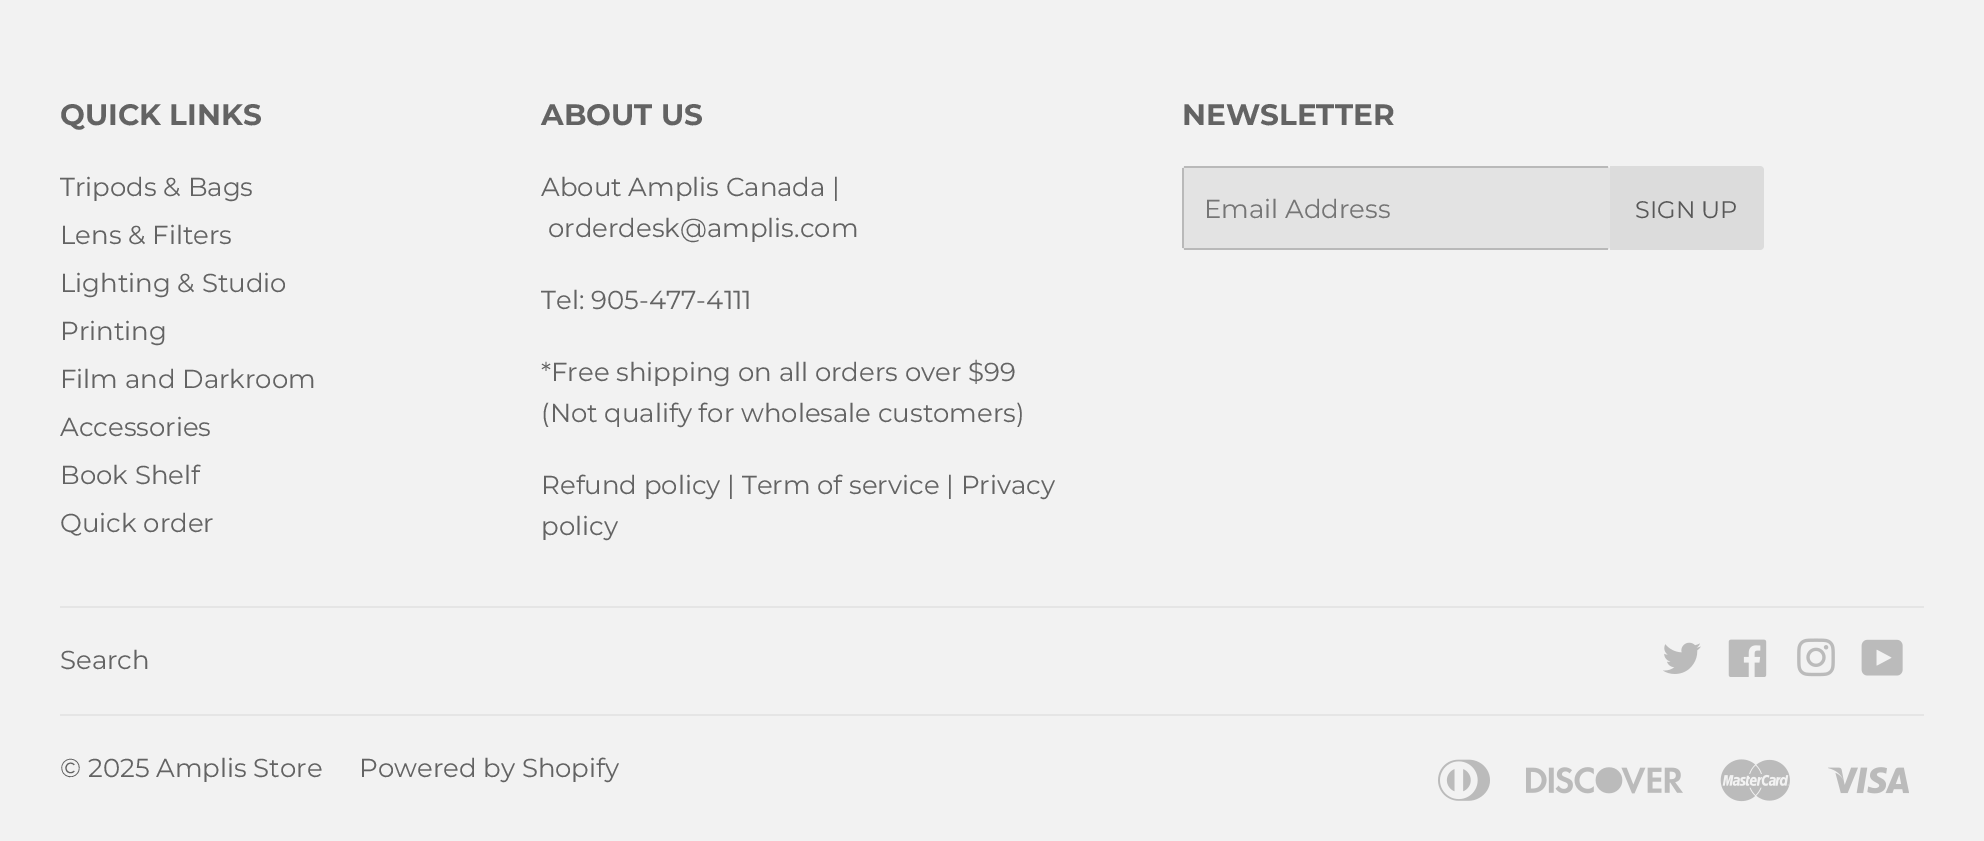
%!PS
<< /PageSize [1984 841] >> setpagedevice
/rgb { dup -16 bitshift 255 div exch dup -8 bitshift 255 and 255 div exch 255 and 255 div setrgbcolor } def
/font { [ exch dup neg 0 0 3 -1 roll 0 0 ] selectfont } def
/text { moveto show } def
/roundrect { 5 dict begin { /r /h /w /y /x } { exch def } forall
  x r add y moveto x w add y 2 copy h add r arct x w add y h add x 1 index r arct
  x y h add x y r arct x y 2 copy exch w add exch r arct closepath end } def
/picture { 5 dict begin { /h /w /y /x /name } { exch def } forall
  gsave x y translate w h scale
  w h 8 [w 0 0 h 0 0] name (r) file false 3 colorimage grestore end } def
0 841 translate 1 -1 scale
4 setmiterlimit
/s1 { /Montserrat-Bold 29.5 font 16#636363 rgb } def
/s2 { /Montserrat-Regular 26 font 16#636363 rgb } def
/s3 { /Montserrat-Regular 26 font 16#757575 rgb } def
/s4 { /Montserrat-Regular 24 font 16#585858 rgb } def
16#F2F2F2 rgb
0 0 1984 841 rectfill
s1
(QUICK LINKS) 60 125 text
s2
(Tripods & Bags) 60 196 text
(Lens & Filters) 60 244 text
(Lighting & Studio) 60 292 text
(Printing) 60 340 text
(Film and Darkroom) 60 388 text
(Accessories) 60 436 text
(Book Shelf) 60 484 text
(Quick order) 60 532 text
s1
(ABOUT US) 541 125 text
s2
(About Amplis Canada |) 541 196 text
(orderdesk@amplis.com) 548 237 text
(Tel: 905-477-4111) 541 309 text
(*Free shipping on all orders over $99) 541 381 text
(\(Not qualify for wholesale customers\)) 541 422 text
(Refund policy | Term of service | Privacy) 541 494 text
(policy) 541 535 text
s1
(NEWSLETTER) 1182 125 text
16#E3E3E3 rgb
1182 166 428 84 4 roundrect fill
16#B9B9B9 rgb
1184 166 424 2 rectfill
1184 248 424 2 rectfill
1182 168 2 80 rectfill
s3
(Email Address) 1204 218 text
16#DCDCDC rgb
1610 166 moveto 1760 166 lineto 1762 166 1764 168 1764 170 curveto 1764 246 lineto 1764 248 1762 250 1760 250 curveto 1610 250 lineto closepath fill
s4
(SIGN UP) 1635 218 text
16#E5E5E5 rgb
60 606 1864 2 rectfill
s2
(Search) 60 669 text
(pic1.raw) 1663 642 38 32 picture
(pic2.raw) 1728 639 39 38 picture
(pic3.raw) 1797 638 38 39 picture
(pic4.raw) 1861 639 42 37 picture
16#E5E5E5 rgb
60 714 1864 2 rectfill
s2
(© 2025 Amplis Store) 60 777 text
(Powered by Shopify) 359 777 text
(pic5.raw) 1438 759 52 42 picture
(pic6.raw) 1526 767 157 27 picture
(pic7.raw) 1720 759 70 43 picture
(pic8.raw) 1828 767 81 27 picture
showpage
